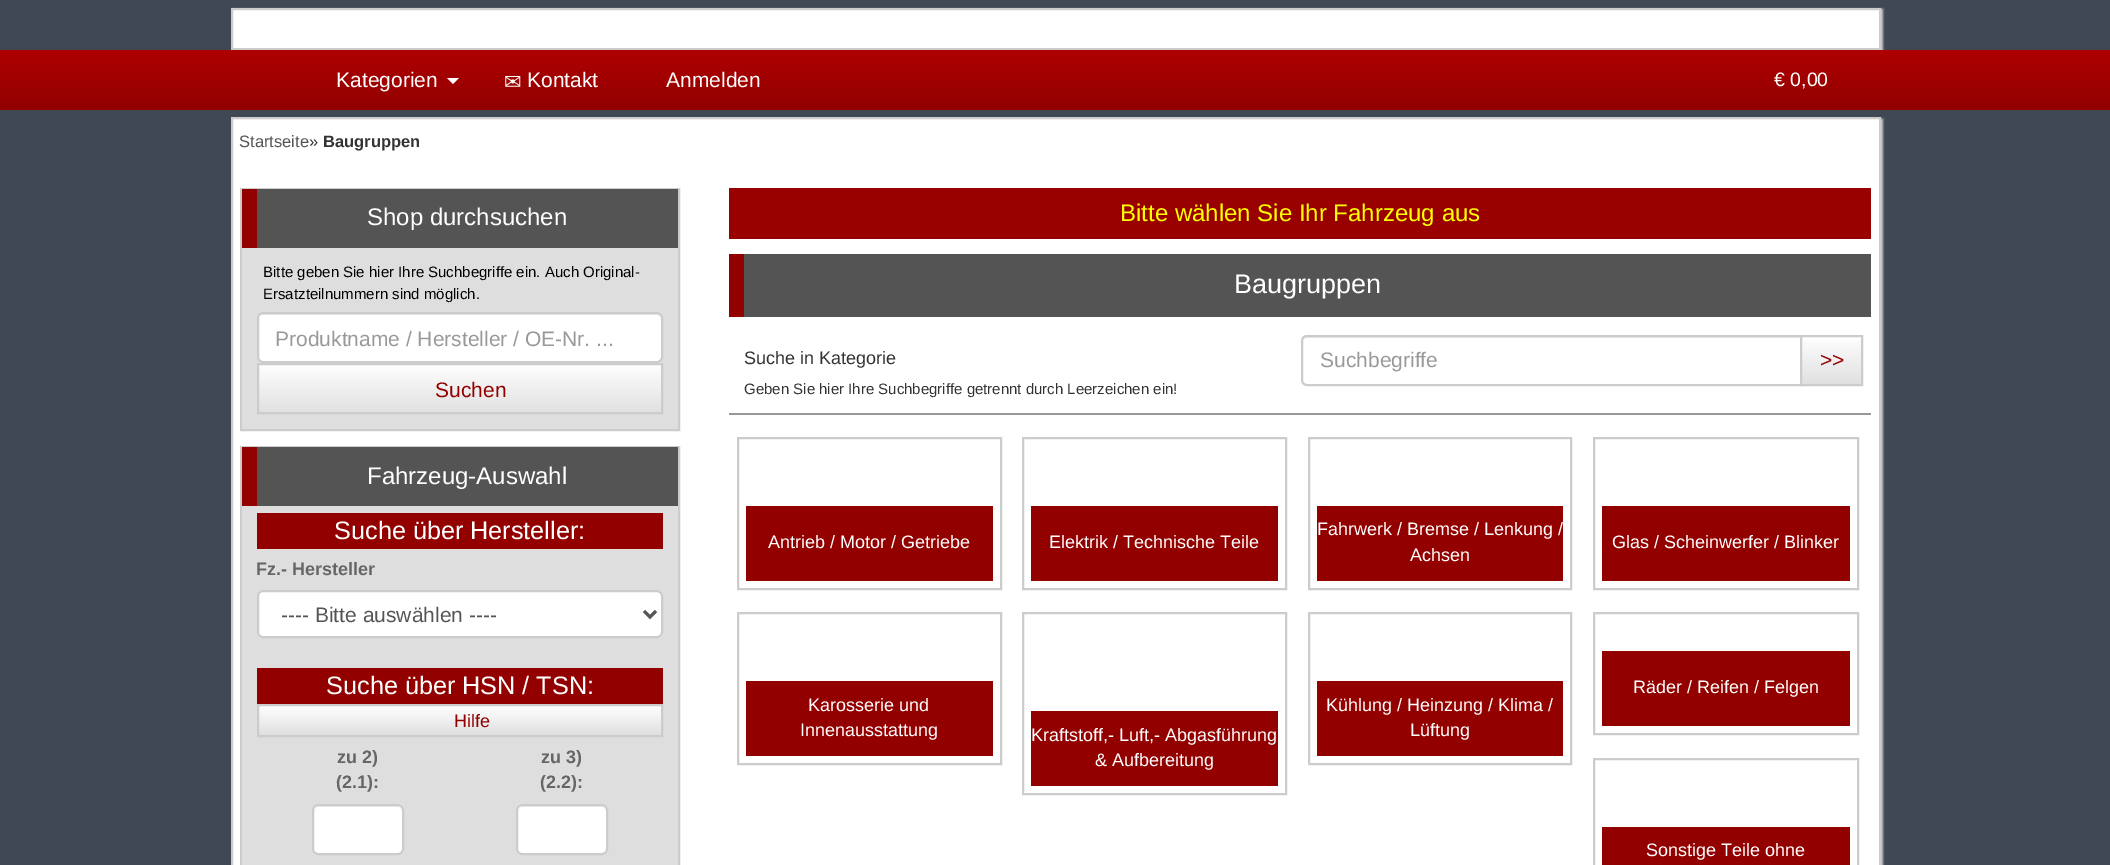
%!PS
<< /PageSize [2110 865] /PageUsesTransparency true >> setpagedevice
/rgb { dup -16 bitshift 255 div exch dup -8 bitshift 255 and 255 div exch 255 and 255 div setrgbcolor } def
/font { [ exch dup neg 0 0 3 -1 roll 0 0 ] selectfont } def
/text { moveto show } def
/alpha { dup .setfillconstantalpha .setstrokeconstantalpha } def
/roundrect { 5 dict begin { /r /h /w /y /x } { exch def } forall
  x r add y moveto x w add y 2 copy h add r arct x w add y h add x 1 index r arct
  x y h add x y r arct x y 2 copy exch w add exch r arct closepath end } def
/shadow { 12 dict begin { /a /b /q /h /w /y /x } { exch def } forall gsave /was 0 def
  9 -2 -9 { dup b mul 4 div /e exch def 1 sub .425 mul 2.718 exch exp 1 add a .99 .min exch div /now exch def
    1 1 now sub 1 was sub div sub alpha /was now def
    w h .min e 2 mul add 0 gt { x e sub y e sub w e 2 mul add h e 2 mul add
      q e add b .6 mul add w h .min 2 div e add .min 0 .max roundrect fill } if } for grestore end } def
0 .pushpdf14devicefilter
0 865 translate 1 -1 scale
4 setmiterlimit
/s1 { /LiberationSans-Regular 21 font 16#FFFFFF rgb } def
/s2 { /DejaVuSans-Regular 21 font 16#FFFFFF rgb } def
/s3 { /LiberationSans-Regular 19.5 font 16#FFFFFF rgb } def
/s4 { /LiberationSans-Regular 16.5 font 16#555555 rgb } def
/s5 { /LiberationSans-Regular 16.5 font 16#333333 rgb } def
/s6 { /LiberationSans-Bold 16.5 font 16#333333 rgb } def
/s7 { /LiberationSans-Regular 24 font 16#FFFFFF rgb } def
/s8 { /LiberationSans-Regular 15 font 16#000000 rgb } def
/s9 { /LiberationSans-Regular 21 font 16#999999 rgb } def
/s10 { /LiberationSans-Regular 21 font 16#920000 rgb } def
/s11 { /LiberationSans-Regular 25.25 font 16#FFFFFF rgb } def
/s12 { /LiberationSans-Bold 18 font 16#666666 rgb } def
/s13 { /LiberationSans-Regular 21 font 16#555555 rgb } def
/s14 { /LiberationSans-Regular 18 font 16#920000 rgb } def
/s15 { /LiberationSans-Regular 24 font 16#FFFF00 rgb } def
/s16 { /LiberationSans-Regular 27 font 16#FFFFFF rgb } def
/s17 { /LiberationSans-Regular 18 font 16#333333 rgb } def
/s18 { /LiberationSans-Regular 15 font 16#333333 rgb } def
/s19 { /LiberationSans-Regular 18 font 16#FFFFFF rgb } def
16#404853 rgb
0 0 2110 865 rectfill
16#CCCCCC rgb
233 9 1650 42 0 1 1 shadow
16#FFFFFF rgb
232 9 moveto 1880 9 lineto 1880 49 lineto 232 49 lineto closepath gsave fill grestore
16#CCCCCC rgb
2 setlinewidth
stroke
gsave 0 50 moveto 2110 50 lineto 2110 110 lineto 0 110 lineto closepath clip newpath
<< /ShadingType 2 /ColorSpace /DeviceRGB /Coords [1055 49 1055 110] /Extend [true true] /Function << /FunctionType 2 /Domain [0 1] /C0 [0.69 0 0] /C1 [0.573 0 0] /N 1 >> >> shfill grestore
s1
(Kategorien) 336 87 text
447 78 moveto 459 78 lineto 453 84 lineto closepath fill
s2
(✉) 504 89 text
s1
(Kontakt) 527 87 text
(Anmelden) 666 87 text
s3
(€ 0,00) 1774 86 text
16#CCCCCC rgb
233 119 1650 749 0 1 1 shadow
16#FFFFFF rgb
232 118 moveto 1880 118 lineto 1880 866 lineto 232 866 lineto closepath gsave fill grestore
16#CCCCCC rgb
stroke
s4
(Startseite) 239 147 text
s5
(») 309 147 text
s6
(Baugruppen) 323 147 text
16#CCCCCC rgb
241 189 438 241 rectstroke
16#545454 rgb
257 189 421 59 rectfill
16#920000 rgb
242 189 15 59 rectfill
s7
(Shop durchsuchen) 367 225 text
16#DEDEDE rgb
242 248 436 181 rectfill
s8
(Bitte geben Sie hier Ihre Suchbegriffe ein. Auch Original-) 263 277 text
(Ersatzteilnummern sind möglich.) 263 299 text
16#FFFFFF rgb
257 312 406 51 6 roundrect fill
16#ECECEC rgb
262 315 moveto 657 315 lineto 659 315 662 317 662 320 curveto 662 319 lineto 662 316 660 314 657 314 curveto 263 314 lineto 260 314 258 316 258 319 curveto 258 320 lineto 258 317 260 315 262 315 curveto closepath fill
16#CCCCCC rgb
258 313 404 49 5 roundrect stroke
s9
(Produktname / Hersteller / OE-Nr. ...) 275 346 text
gsave 259 365 moveto 661 365 lineto 661 412 lineto 259 412 lineto closepath clip newpath
<< /ShadingType 2 /ColorSpace /DeviceRGB /Coords [460 364 460 413] /Extend [true true] /Function << /FunctionType 2 /Domain [0 1] /C0 [1 1 1] /C1 [0.878 0.878 0.878] /N 1 >> >> shfill grestore
16#CCCCCC rgb
258 364 404 49 rectstroke
s10
(Suchen) 435 397 text
16#CCCCCC rgb
241 447 438 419 rectstroke
16#545454 rgb
257 447 421 59 rectfill
16#920000 rgb
242 447 15 59 rectfill
s7
(Fahrzeug-Auswahl) 367 484 text
16#DEDEDE rgb
242 506 436 359 rectfill
16#920000 rgb
257 513 406 36 rectfill
s11
(Suche über Hersteller:) 334 539 text
s12
(Fz.- Hersteller) 256 575 text
16#FFFFFF rgb
257 590 406 48 6 roundrect fill
16#ECECEC rgb
262 592 moveto 657 592 lineto 659 592 662 595 662 597 curveto 662 596 lineto 662 593 660 591 657 591 curveto 263 591 lineto 260 591 258 593 258 596 curveto 258 597 lineto 258 595 260 592 262 592 curveto closepath fill
16#CCCCCC rgb
258 591 404 46 5 roundrect stroke
16#555555 rgb
3 setlinewidth
644 611 moveto 650 617 lineto 656 611 lineto stroke
s13
(---- Bitte auswählen ----) 281 622 text
16#920000 rgb
257 668 406 36 rectfill
s11
(Suche über HSN / TSN:) 326 694 text
gsave 259 706 moveto 661 706 lineto 661 735 lineto 259 735 lineto closepath clip newpath
<< /ShadingType 2 /ColorSpace /DeviceRGB /Coords [460 705 460 735] /Extend [true true] /Function << /FunctionType 2 /Domain [0 1] /C0 [1 1 1] /C1 [0.878 0.878 0.878] /N 1 >> >> shfill grestore
16#CCCCCC rgb
2 setlinewidth
258 705 404 31 rectstroke
s14
(Hilfe) 454 727 text
s12
(zu 2\)) 337 763 text
(\(2.1\):) 336 788 text
(zu 3\)) 541 763 text
(\(2.2\):) 540 788 text
16#FFFFFF rgb
312 804 92 51 6 roundrect fill
16#ECECEC rgb
318 807 moveto 398 807 lineto 400 807 402 809 402 812 curveto 402 803 390 806 384 806 curveto 332 806 lineto 326 806 314 803 314 812 curveto 314 809 316 807 318 807 curveto closepath fill
16#CCCCCC rgb
313 805 90 49 5 roundrect stroke
16#FFFFFF rgb
516 804 92 51 6 roundrect fill
16#ECECEC rgb
522 807 moveto 602 807 lineto 604 807 606 809 606 812 curveto 606 803 594 806 588 806 curveto 536 806 lineto 530 806 518 803 518 812 curveto 518 809 520 807 522 807 curveto closepath fill
16#CCCCCC rgb
517 805 90 49 5 roundrect stroke
16#990000 rgb
729 188 1142 51 rectfill
s15
(Bitte wählen Sie Ihr Fahrzeug aus) 1120 221 text
16#545454 rgb
744 254 1127 63 rectfill
16#920000 rgb
729 254 15 63 rectfill
s16
(Baugruppen) 1234 293 text
16#999999 rgb
729 413 1142 2 rectfill
s17
(Suche in Kategorie) 744 364 text
s18
(Geben Sie hier Ihre Suchbegriffe getrennt durch Leerzeichen ein!) 744 394 text
16#ECECEC rgb
1306 338 moveto 1800 338 lineto 1800 336 lineto 1307 336 lineto 1304 336 1302 338 1302 341 curveto 1302 342 lineto 1302 340 1304 338 1306 338 curveto closepath fill
16#CCCCCC rgb
1307 336 moveto 1801 336 lineto 1801 385 lineto 1307 385 lineto 1304 385 1302 383 1302 380 curveto 1302 341 lineto 1302 338 1304 336 1307 336 curveto closepath stroke
s9
(Suchbegriffe) 1320 367 text
gsave 1802 340 moveto 1861 340 lineto 1861 384 lineto 1802 384 lineto closepath clip newpath
<< /ShadingType 2 /ColorSpace /DeviceRGB /Coords [1832 336 1832 384] /Extend [true true] /Function << /FunctionType 2 /Domain [0 1] /C0 [1 1 1] /C1 [0.878 0.878 0.878] /N 1 >> >> shfill grestore
16#CCCCCC rgb
1801 336 61 49 rectstroke
s10
(>>) 1820 367 text
16#CCCCCC rgb
738 438 263 151 rectstroke
16#920000 rgb
746 506 247 75 rectfill
s19
(Antrieb / Motor / Getriebe) 768 548 text
16#CCCCCC rgb
1023 438 263 151 rectstroke
16#920000 rgb
1031 506 247 75 rectfill
s19
(Elektrik / Technische Teile) 1049 548 text
16#CCCCCC rgb
1309 438 262 151 rectstroke
16#920000 rgb
1317 506 246 75 rectfill
s19
(Fahrwerk / Bremse / Lenkung /) 1317 535 text
(Achsen) 1410 561 text
16#CCCCCC rgb
1594 438 264 151 rectstroke
16#920000 rgb
1602 506 248 75 rectfill
s19
(Glas / Scheinwerfer / Blinker) 1612 548 text
16#CCCCCC rgb
1594 613 264 121 rectstroke
16#920000 rgb
1602 651 248 75 rectfill
s19
(Räder / Reifen / Felgen) 1633 693 text
16#CCCCCC rgb
738 613 263 151 rectstroke
16#920000 rgb
746 681 247 75 rectfill
s19
(Karosserie und) 808 711 text
(Innenausstattung) 800 736 text
16#CCCCCC rgb
1309 613 262 151 rectstroke
16#920000 rgb
1317 681 246 75 rectfill
s19
(Kühlung / Heinzung / Klima /) 1326 711 text
(Lüftung) 1410 736 text
16#CCCCCC rgb
1023 613 263 181 rectstroke
16#920000 rgb
1031 711 247 75 rectfill
s19
(Kraftstoff,- Luft,- Abgasführung) 1031 741 text
(& Aufbereitung) 1095 766 text
16#CCCCCC rgb
1594 759 264 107 rectstroke
16#920000 rgb
1602 827 248 38 rectfill
s19
(Sonstige Teile ohne) 1646 856 text
.poppdf14devicefilter showpage
